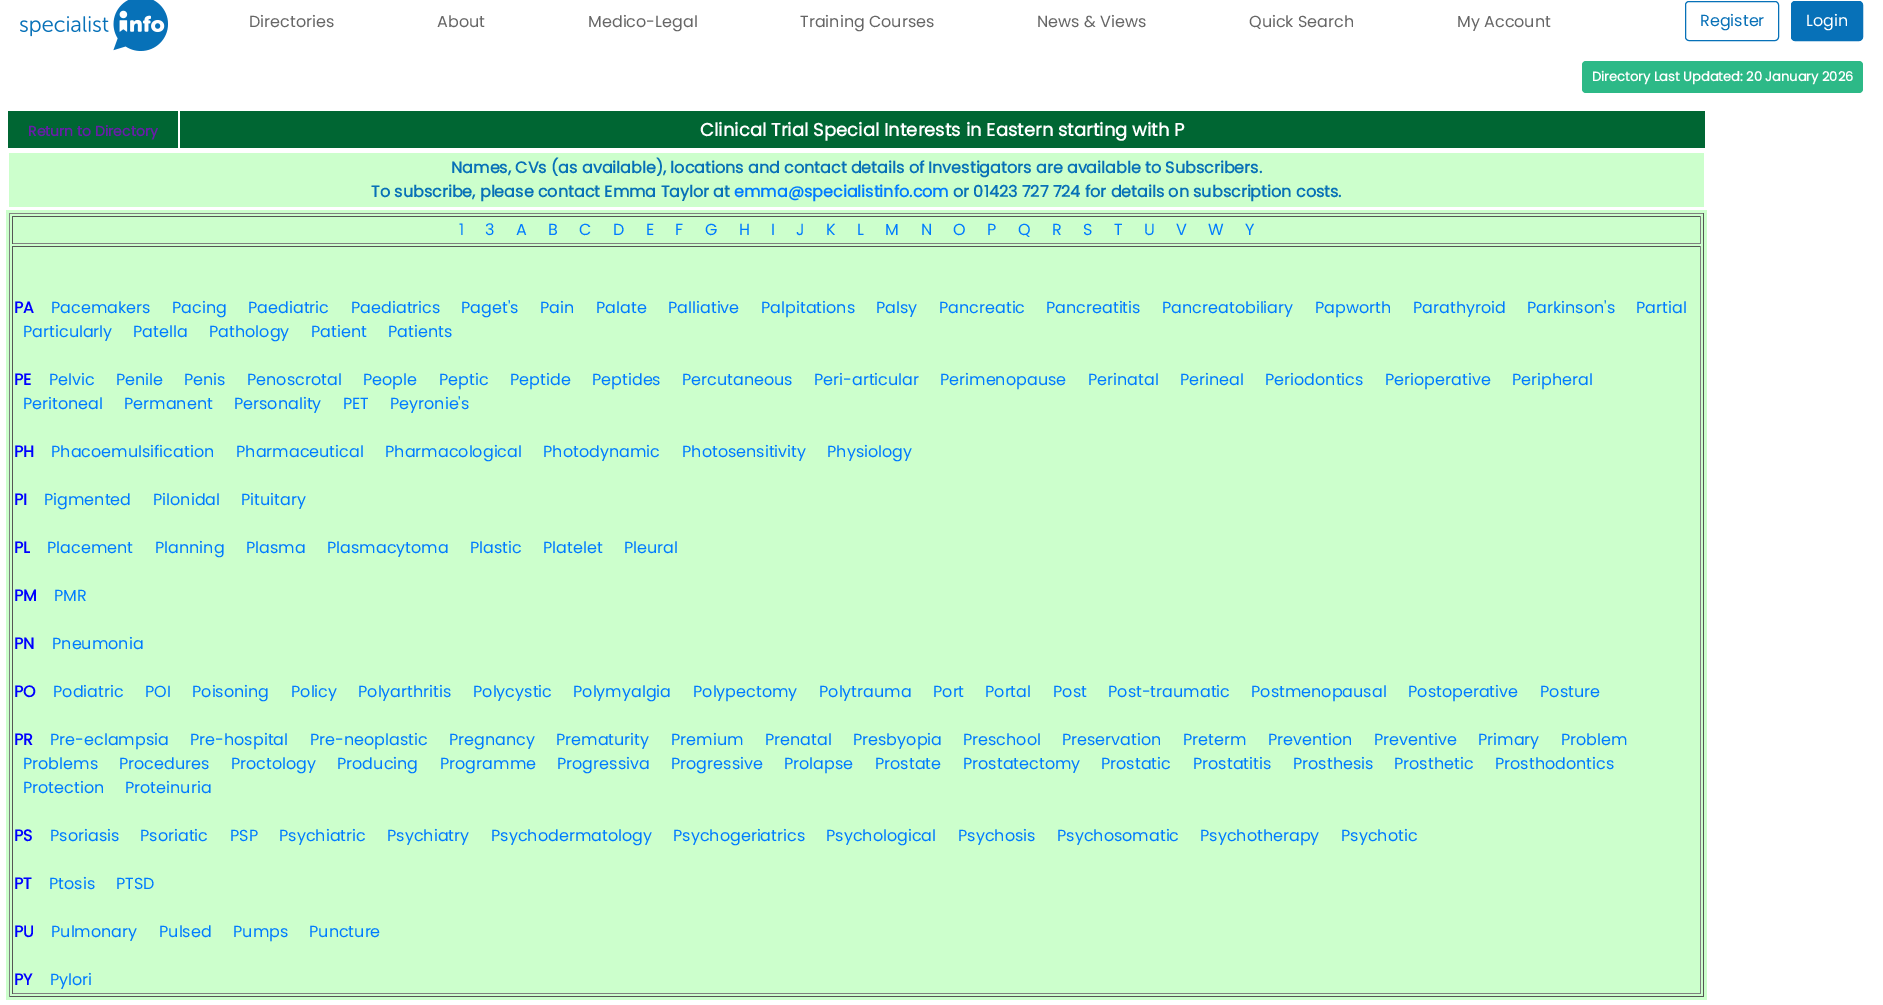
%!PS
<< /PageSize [1883 1005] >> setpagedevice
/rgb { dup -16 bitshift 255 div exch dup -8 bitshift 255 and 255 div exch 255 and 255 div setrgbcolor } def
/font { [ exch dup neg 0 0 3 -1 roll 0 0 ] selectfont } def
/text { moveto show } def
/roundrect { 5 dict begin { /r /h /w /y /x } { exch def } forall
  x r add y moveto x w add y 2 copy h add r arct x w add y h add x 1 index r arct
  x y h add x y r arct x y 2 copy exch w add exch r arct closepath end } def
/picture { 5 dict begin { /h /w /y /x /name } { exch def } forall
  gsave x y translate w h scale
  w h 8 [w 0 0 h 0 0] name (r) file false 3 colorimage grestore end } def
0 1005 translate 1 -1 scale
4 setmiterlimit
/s1 { /Poppins-Regular 16 font 16#666666 rgb } def
/s2 { /Poppins-Regular 16 font 16#0770B7 rgb } def
/s3 { /Poppins-Regular 16 font 16#FFFFFF rgb } def
/s4 { /Poppins-Bold 13 font 16#FFFFFF rgb } def
/s5 { /Poppins-Bold 14 font 16#681DA8 rgb } def
/s6 { /Poppins-Bold 18 font 16#FFFFFF rgb } def
/s7 { /Poppins-Bold 16 font 16#0770B7 rgb } def
/s8 { /Poppins-Bold 16 font 16#007BFF rgb } def
/s9 { /Poppins-Regular 16 font 16#007BFF rgb } def
/s10 { /Poppins-Bold 16 font 16#0000FF rgb } def
16#FFFFFF rgb
0 0 1883 1005 rectfill
(pic1.raw) 20 0 148 51 picture
s1
(Directories) 249 27 text
(About) 437 27 text
(Medico-Legal) 588 27 text
(Training Courses) 800 27 text
(News & Views) 1037 27 text
(Quick Search) 1249 27 text
(My Account) 1457 27 text
16#0771B8 rgb
1685.5 1.5 93 39 3.5 roundrect stroke
s2
(Register) 1700 26 text
16#0771B8 rgb
1791.5 1.5 71 39 3.5 roundrect gsave fill grestore
stroke
s3
(Login) 1806 26 text
16#2DB987 rgb
1582 61 281 32 4 roundrect fill
s4
(Directory Last Updated: 20 January 2026) 1592 81 text
16#006633 rgb
8 111 170 37 rectfill
s5
(Return to Directory) 28 136 text
16#006633 rgb
180 111 1525 37 rectfill
s6
(Clinical Trial Special Interests in Eastern starting with P) 700 136 text
16#CCFFCC rgb
9 153 1695 54 rectfill
s7
(Names, CVs \(as available\), locations and contact details of Investigators are available to Subscribers.) 451 173 text
(To subscribe, please contact Emma Taylor at) 371 197 text
s8
(emma@specialistinfo.com) 734 197 text
s7
(or 01423 727 724 for details on subscription costs.) 953 197 text
16#CCFFCC rgb
6 210 1701 790 rectfill
16#808080 rgb
9 213 1695 1 rectfill
16#555555 rgb
1703 213 1 784 rectfill
9 996 1695 1 rectfill
16#808080 rgb
9 213 1 784 rectfill
16#555555 rgb
12 216 1689 1 rectfill
16#808080 rgb
1700 216 1 28 rectfill
12 243 1689 1 rectfill
16#555555 rgb
12 216 1 28 rectfill
s9
(1) 459 235 text
(3) 485 235 text
(A) 516 235 text
(B) 548 235 text
(C) 579 235 text
(D) 613 235 text
(E) 646 235 text
(F) 675 235 text
(G) 705 235 text
(H) 739 235 text
(I) 771 235 text
(J) 796 235 text
(K) 826 235 text
(L) 857 235 text
(M) 885 235 text
(N) 921 235 text
(O) 953 235 text
(P) 987 235 text
(Q) 1018 235 text
(R) 1052 235 text
(S) 1083 235 text
(T) 1114 235 text
(U) 1144 235 text
(V) 1176 235 text
(W) 1208 235 text
(Y) 1245 235 text
16#555555 rgb
12 246 1689 1 rectfill
16#808080 rgb
1700 246 1 748 rectfill
12 993 1689 1 rectfill
16#555555 rgb
12 246 1 748 rectfill
s10
(PA) 14 313 text
s9
(Pacemakers) 51 313 text
(Pacing) 172 313 text
(Paediatric) 248 313 text
(Paediatrics) 351 313 text
(Paget's) 461 313 text
(Pain) 540 313 text
(Palate) 596 313 text
(Palliative) 668 313 text
(Palpitations) 761 313 text
(Palsy) 876 313 text
(Pancreatic) 939 313 text
(Pancreatitis) 1046 313 text
(Pancreatobiliary) 1162 313 text
(Papworth) 1315 313 text
(Parathyroid) 1413 313 text
(Parkinson's) 1527 313 text
(Partial) 1636 313 text
(Particularly) 23 337 text
(Patella) 133 337 text
(Pathology) 209 337 text
(Patient) 311 337 text
(Patients) 388 337 text
s10
(PE) 14 385 text
s9
(Pelvic) 49 385 text
(Penile) 116 385 text
(Penis) 184 385 text
(Penoscrotal) 247 385 text
(People) 363 385 text
(Peptic) 439 385 text
(Peptide) 510 385 text
(Peptides) 592 385 text
(Percutaneous) 682 385 text
(Peri-articular) 814 385 text
(Perimenopause) 940 385 text
(Perinatal) 1088 385 text
(Perineal) 1180 385 text
(Periodontics) 1265 385 text
(Perioperative) 1385 385 text
(Peripheral) 1512 385 text
(Peritoneal) 23 409 text
(Permanent) 124 409 text
(Personality) 234 409 text
(PET) 343 409 text
(Peyronie's) 390 409 text
s10
(PH) 14 457 text
s9
(Phacoemulsification) 51 457 text
(Pharmaceutical) 236 457 text
(Pharmacological) 385 457 text
(Photodynamic) 543 457 text
(Photosensitivity) 682 457 text
(Physiology) 827 457 text
s10
(PI) 14 505 text
s9
(Pigmented) 44 505 text
(Pilonidal) 153 505 text
(Pituitary) 241 505 text
s10
(PL) 14 553 text
s9
(Placement) 47 553 text
(Planning) 155 553 text
(Plasma) 246 553 text
(Plasmacytoma) 327 553 text
(Plastic) 470 553 text
(Platelet) 543 553 text
(Pleural) 624 553 text
s10
(PM) 14 601 text
s9
(PMR) 54 601 text
s10
(PN) 14 649 text
s9
(Pneumonia) 52 649 text
s10
(PO) 14 697 text
s9
(Podiatric) 53 697 text
(POI) 145 697 text
(Poisoning) 192 697 text
(Policy) 291 697 text
(Polyarthritis) 358 697 text
(Polycystic) 473 697 text
(Polymyalgia) 573 697 text
(Polypectomy) 693 697 text
(Polytrauma) 819 697 text
(Port) 933 697 text
(Portal) 985 697 text
(Post) 1053 697 text
(Post-traumatic) 1108 697 text
(Postmenopausal) 1251 697 text
(Postoperative) 1408 697 text
(Posture) 1540 697 text
s10
(PR) 14 745 text
s9
(Pre-eclampsia) 50 745 text
(Pre-hospital) 190 745 text
(Pre-neoplastic) 310 745 text
(Pregnancy) 449 745 text
(Prematurity) 556 745 text
(Premium) 671 745 text
(Prenatal) 765 745 text
(Presbyopia) 853 745 text
(Preschool) 963 745 text
(Preservation) 1062 745 text
(Preterm) 1183 745 text
(Prevention) 1268 745 text
(Preventive) 1374 745 text
(Primary) 1478 745 text
(Problem) 1561 745 text
(Problems) 23 769 text
(Procedures) 119 769 text
(Proctology) 231 769 text
(Producing) 337 769 text
(Programme) 440 769 text
(Progressiva) 557 769 text
(Progressive) 671 769 text
(Prolapse) 784 769 text
(Prostate) 875 769 text
(Prostatectomy) 963 769 text
(Prostatic) 1101 769 text
(Prostatitis) 1193 769 text
(Prosthesis) 1293 769 text
(Prosthetic) 1394 769 text
(Prosthodontics) 1495 769 text
(Protection) 23 793 text
(Proteinuria) 125 793 text
s10
(PS) 14 841 text
s9
(Psoriasis) 50 841 text
(Psoriatic) 140 841 text
(PSP) 230 841 text
(Psychiatric) 279 841 text
(Psychiatry) 387 841 text
(Psychodermatology) 491 841 text
(Psychogeriatrics) 673 841 text
(Psychological) 826 841 text
(Psychosis) 958 841 text
(Psychosomatic) 1057 841 text
(Psychotherapy) 1200 841 text
(Psychotic) 1341 841 text
s10
(PT) 14 889 text
s9
(Ptosis) 49 889 text
(PTSD) 116 889 text
s10
(PU) 14 937 text
s9
(Pulmonary) 51 937 text
(Pulsed) 159 937 text
(Pumps) 233 937 text
(Puncture) 309 937 text
s10
(PY) 14 985 text
s9
(Pylori) 50 985 text
showpage
